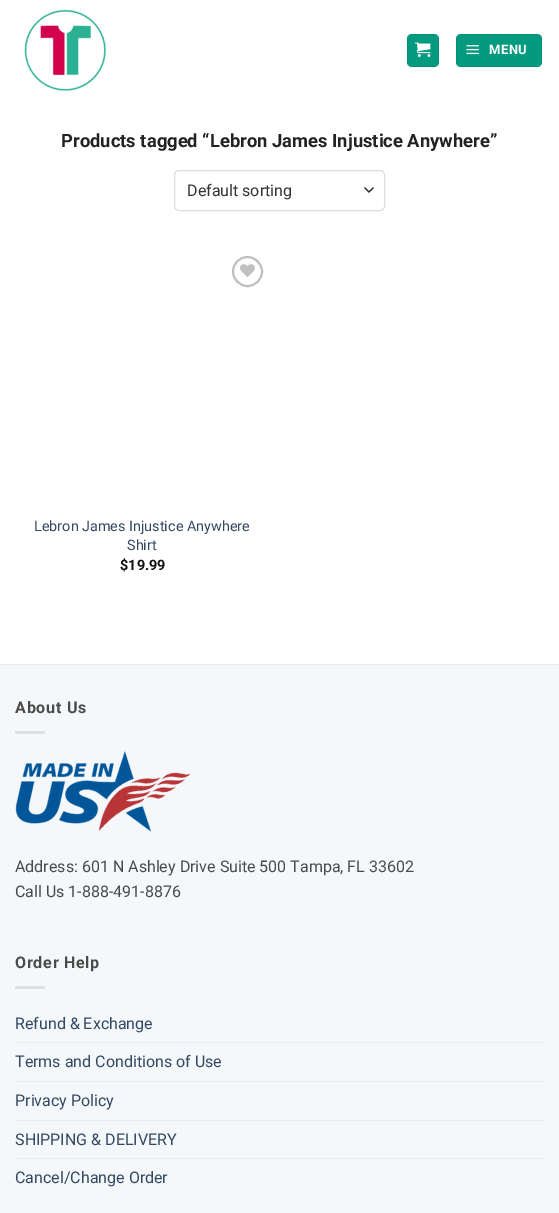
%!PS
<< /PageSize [559 1213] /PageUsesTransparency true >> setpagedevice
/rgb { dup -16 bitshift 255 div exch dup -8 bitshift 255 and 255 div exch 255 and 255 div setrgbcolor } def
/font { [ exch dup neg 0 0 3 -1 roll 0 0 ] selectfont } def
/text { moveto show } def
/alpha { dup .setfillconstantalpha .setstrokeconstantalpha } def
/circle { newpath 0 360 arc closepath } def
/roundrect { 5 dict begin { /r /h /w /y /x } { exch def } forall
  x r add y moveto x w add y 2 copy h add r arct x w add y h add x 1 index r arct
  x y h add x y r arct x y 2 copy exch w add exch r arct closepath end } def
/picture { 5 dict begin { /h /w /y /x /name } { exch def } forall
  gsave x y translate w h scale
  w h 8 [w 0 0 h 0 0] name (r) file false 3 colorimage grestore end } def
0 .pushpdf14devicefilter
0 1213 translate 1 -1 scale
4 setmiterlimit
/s1 { /Roboto-Bold 18.4 font 16#222222 rgb } def
/s2 { /Roboto-Regular 16 font 16#333333 rgb } def
/s3 { /Roboto-Regular 14.4 font 16#334862 rgb } def
/s4 { /Roboto-Bold 14.4 font 16#111111 rgb } def
/s5 { /Roboto-Regular 16 font 16#4A4A4A rgb } def
/s6 { /Roboto-Regular 16 font 16#334862 rgb } def
16#FFFFFF rgb
0 0 559 1213 rectfill
(pic1.raw) 24 9 82 82 picture
16#039A7F rgb
407 34 32 33 5 roundrect fill
0.05 alpha
16#000000 rgb
407.5 34.5 31 32 rectstroke
1 alpha
(pic2.raw) 415 42 16 15 picture
16#039A7F rgb
456 34 86 33 5 roundrect fill
0.05 alpha
16#000000 rgb
456.5 34.5 85 32 rectstroke
1 alpha
(pic3.raw) 466 45 13 10 picture
/Roboto-Bold 13 font
16#FFFFFF rgb
489 54 moveto 0.5 0 (MENU) ashow
s1
(Products tagged “Lebron James Injustice Anywhere”) 61 147 text
16#333333 rgb
1.3 setlinewidth
1 setlinecap
1 setlinejoin
365 188 moveto 369 192 lineto 373 188 lineto stroke
16#DDDDDD rgb
1 setlinewidth
0 setlinecap
0 setlinejoin
174.5 170.5 210 40 4.5 roundrect stroke
s2
(Default sorting) 187 196 text
16#C0C0C0 rgb
2 setlinewidth
247.5 271.5 14.5 circle stroke
(pic4.raw) 240 264 15 13 picture
s3
(Lebron James Injustice Anywhere) 34 531 text
(Shirt) 127 550 text
s4
($19.99) 120 570 text
16#F5F8FA rgb
0 665 559 548 rectfill
16#E9ECEE rgb
0 664 559 1 rectfill
/Roboto-Bold 16 font
16#4A4A4A rgb
15 713 moveto 0.75 0 (About Us) ashow
16#DDDFE1 rgb
15 731 30 3 rectfill
(pic5.raw) 15 751 176 81 picture
s5
(Address: 601 N Ashley Drive Suite 500 Tampa, FL 33602) 15 872 text
(Call Us 1-888-491-8876) 15 897 text
/Roboto-Bold 16 font
15 968 moveto 0.75 0 (Order Help) ashow
16#DDDFE1 rgb
15 986 30 3 rectfill
s6
(Refund & Exchange) 15 1029 text
16#ECECEC rgb
15 1042 529 1 rectfill
s6
(Terms and Conditions of Use) 15 1067 text
16#ECECEC rgb
15 1081 529 1 rectfill
s6
(Privacy Policy) 15 1106 text
16#ECECEC rgb
15 1120 529 1 rectfill
s6
(SHIPPING & DELIVERY) 15 1145 text
16#ECECEC rgb
15 1158 529 1 rectfill
s6
(Cancel/Change Order) 15 1183 text
.poppdf14devicefilter showpage
